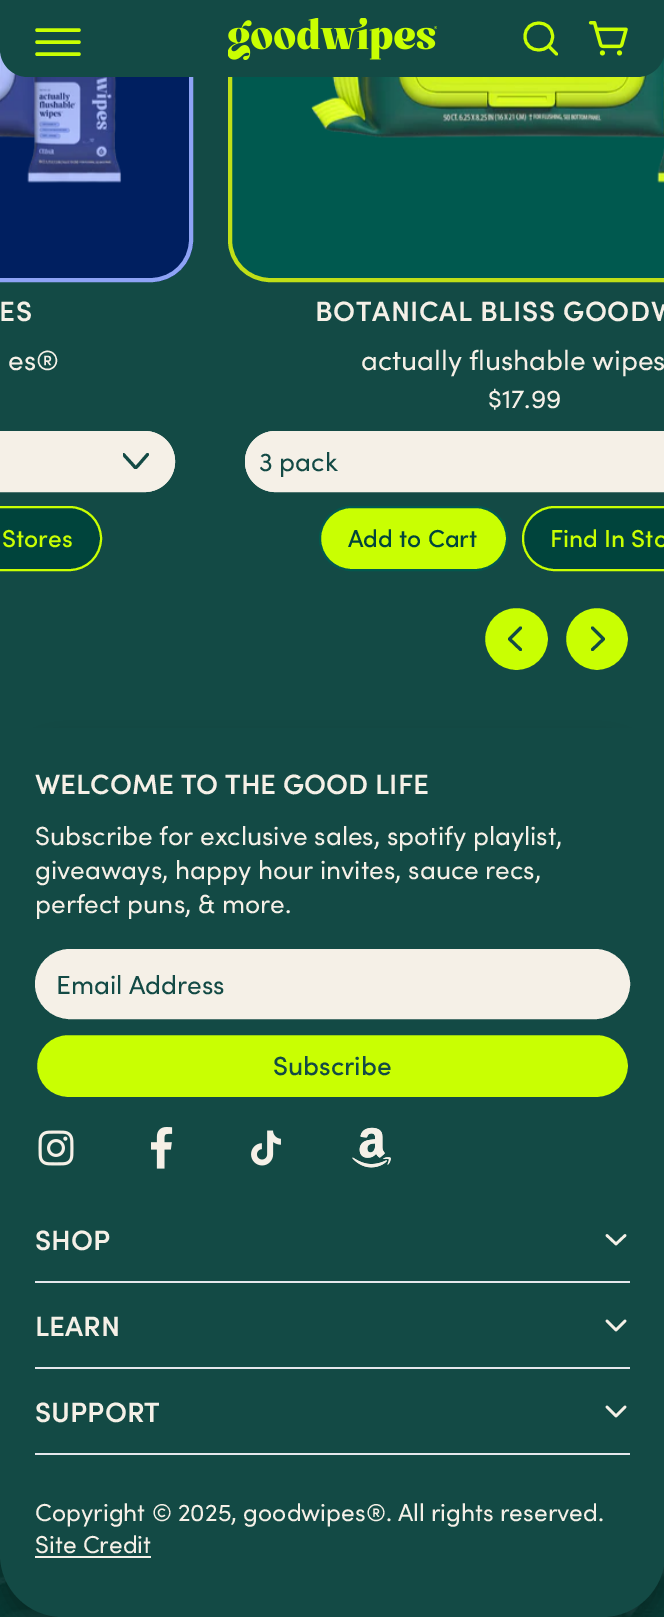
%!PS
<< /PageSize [664 1617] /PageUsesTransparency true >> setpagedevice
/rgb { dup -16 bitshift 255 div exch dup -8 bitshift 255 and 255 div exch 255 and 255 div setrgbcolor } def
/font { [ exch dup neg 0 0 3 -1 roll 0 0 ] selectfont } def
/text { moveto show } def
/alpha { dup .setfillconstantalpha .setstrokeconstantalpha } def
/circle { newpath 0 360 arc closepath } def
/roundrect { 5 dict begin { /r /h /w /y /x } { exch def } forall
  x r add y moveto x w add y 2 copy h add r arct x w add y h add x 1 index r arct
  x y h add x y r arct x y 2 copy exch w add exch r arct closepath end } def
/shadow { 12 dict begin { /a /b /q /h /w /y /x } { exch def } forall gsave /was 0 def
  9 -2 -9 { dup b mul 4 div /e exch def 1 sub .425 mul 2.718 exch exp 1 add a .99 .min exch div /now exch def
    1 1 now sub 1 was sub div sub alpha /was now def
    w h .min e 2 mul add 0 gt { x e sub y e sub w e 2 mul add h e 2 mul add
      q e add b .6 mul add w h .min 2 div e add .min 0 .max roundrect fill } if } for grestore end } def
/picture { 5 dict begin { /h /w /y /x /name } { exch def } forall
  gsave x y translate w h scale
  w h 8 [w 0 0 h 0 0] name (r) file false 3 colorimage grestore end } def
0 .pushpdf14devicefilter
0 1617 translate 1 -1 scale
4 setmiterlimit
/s1 { /Sofia-Regular 28 font 16#F5F0E7 rgb } def
/s2 { /Sofia-Medium 24.5 font 16#C9FF02 rgb } def
/s3 { /Sofia-Regular 26.25 font 16#F5F0E7 rgb } def
/s4 { /Sofia-Regular 26.25 font 16#134A45 rgb } def
/s5 { /Sofia-Medium 24.5 font 16#00443C rgb } def
/s6 { /Sofia-Bold 28 font 16#F5F0E7 rgb } def
/s7 { /Sofia-Medium 26.25 font 16#134A45 rgb } def
/s8 { /Sofia-Regular 24.5 font 16#F5F0E7 rgb } def
16#134A45 rgb
0 0 664 1617 rectfill
16#001F60 rgb
0 -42 moveto 151 -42 lineto 174 -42 193 -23 193 0 curveto 193 240 lineto 193 263 174 282 151 282 curveto 0 282 lineto closepath fill
16#8EA3F6 rgb
4 setlinewidth
-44 -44 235 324 40 roundrect stroke
(pic3.raw) 0 49 122 134 picture
16#00594F rgb
270 -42 moveto 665 -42 lineto 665 282 lineto 270 282 lineto 247 282 228 263 228 240 curveto 228 0 lineto 228 -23 247 -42 270 -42 curveto closepath fill
16#C0DF17 rgb
230 -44 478 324 40 roundrect stroke
(pic4.raw) 311 56 353 127 picture
16#134A45 rgb
0 0 moveto 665 0 lineto 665 49 lineto 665 64.5 652.5 77 637 77 curveto 28 77 lineto 12.5 77 0 64.5 0 49 curveto closepath fill
16#C9FF02 rgb
3.5 setlinewidth
1 setlinecap
37 30 moveto 79 30 lineto 37 42 moveto 79 42 lineto 37 54 moveto 79 54 lineto stroke
(pic1.raw) 228 18 209 42 picture
3 setlinewidth
1 setlinejoin
525 36.5 moveto 525 54.5 552.5 54.5 552.5 36.5 curveto 552.5 18.5 525 18.5 525 36.5 curveto closepath 556.5 54 moveto 548.5 46 lineto stroke
(pic2.raw) 588 21 40 35 picture
/Sofia-Bold 28 font
16#F5F0E7 rgb
-1 321 moveto 0.6 0 (ES) ashow
s1
(es®) 8 370 text
0 431 moveto 144.5 431 lineto 161.5 431 175 444.5 175 461.5 curveto 175 478.5 161.5 492 144.5 492 curveto 0 492 lineto closepath fill
gsave
123 448 26 26 rectclip
16#134A45 rgb
123.5 454.5 moveto 133.5 465.5 lineto 136 468.5 135 468.5 138 465.5 curveto 147.5 454.5 lineto stroke
grestore
2 setlinewidth
0 setlinecap
0 setlinejoin
-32 432 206 59 29.5 roundrect stroke
16#00443C rgb
0 506 moveto 69.5 506 lineto 87.5 506 102 520.5 102 538.5 curveto 102 556.5 87.5 571 69.5 571 curveto 0 571 lineto closepath fill
16#C9FF02 rgb
-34 507 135 63 31.5 roundrect stroke
s2
(Stores) 2 547 text
/Sofia-Bold 28 font
16#F5F0E7 rgb
315 321 moveto 0.6 0 (BOTANICAL BLISS GOODW) ashow
s1
(actually flushable wipes) 361 370 text
s3
($17.99) 488 408 text
275.5 431 moveto 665 431 lineto 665 492 lineto 275.5 492 lineto 258.5 492 245 478.5 245 461.5 curveto 245 444.5 258.5 431 275.5 431 curveto closepath fill
246 432 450 59 29.5 roundrect stroke
s4
(3 pack) 259 471 text
16#C9FF02 rgb
320 507 187 63 31.5 roundrect gsave fill grestore
16#01594F rgb
stroke
s5
(Add to Cart) 348 547 text
554.5 506 moveto 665 506 lineto 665 571 lineto 554.5 571 lineto 536.5 571 522 556.5 522 538.5 curveto 522 520.5 536.5 506 554.5 506 curveto closepath fill
16#C9FF02 rgb
523 507 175 63 31.5 roundrect stroke
(Find In Sto) 550 547 text
484 607 65 64 32 roundrect gsave fill grestore
16#134A45 rgb
stroke
3 setlinewidth
1 setlinecap
1 setlinejoin
520.5 649.5 moveto 509.5 639 lineto 520.5 628 lineto stroke
16#C9FF02 rgb
597 639 32 circle gsave fill grestore
16#134A45 rgb
2 setlinewidth
0 setlinecap
0 setlinejoin
stroke
3 setlinewidth
1 setlinecap
1 setlinejoin
592.5 628 moveto 603.5 639 lineto 592.5 649.5 lineto stroke
(pic9.raw) 0 1554 664 63 picture
16#000000 rgb
0 747 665 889 63 12 0.25 shadow
16#134A45 rgb
0 728 moveto 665 728 lineto 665 1554 lineto 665 1589 637 1617 602 1617 curveto 63 1617 lineto 28 1617 0 1589 0 1554 curveto closepath fill
s6
(WELCOME TO THE GOOD LIFE) 35 794 text
s3
(Subscribe for exclusive sales, spotify playlist,) 35 845 text
(giveaways, happy hour invites, sauce recs,) 35 879 text
(perfect puns, & more.) 35 913 text
36 950 593 68 34 roundrect gsave fill grestore
2 setlinewidth
0 setlinecap
0 setlinejoin
stroke
s4
(Email Address) 56 994 text
16#C9FF02 rgb
36 1034 593 64 32 roundrect gsave fill grestore
16#134A45 rgb
stroke
s7
(Subscribe) 273 1075 text
(pic5.raw) 38 1130 36 36 picture
(pic6.raw) 151 1127 22 42 picture
(pic7.raw) 251 1130 30 36 picture
(pic8.raw) 352 1127 39 41 picture
16#E5E7EB rgb
35 1281 595 2 rectfill
s6
(SHOP) 35 1250 text
2.6 setlinewidth
1 setlinecap
1 setlinejoin
625 1235.5 moveto 616 1244 lineto 607 1235.5 lineto stroke
16#E5E7EB rgb
35 1367 595 2 rectfill
s6
(LEARN) 35 1336 text
625 1321 moveto 616 1330 lineto 607 1321 lineto stroke
16#E5E7EB rgb
35 1453 595 2 rectfill
s6
(SUPPORT) 35 1422 text
625 1407 moveto 616 1416 lineto 607 1407 lineto stroke
s8
(Copyright © 2025, goodwipes®. All rights reserved.) 35 1521 text
(Site Credit) 35 1553 text
35 1556 116 2 rectfill
.poppdf14devicefilter showpage
